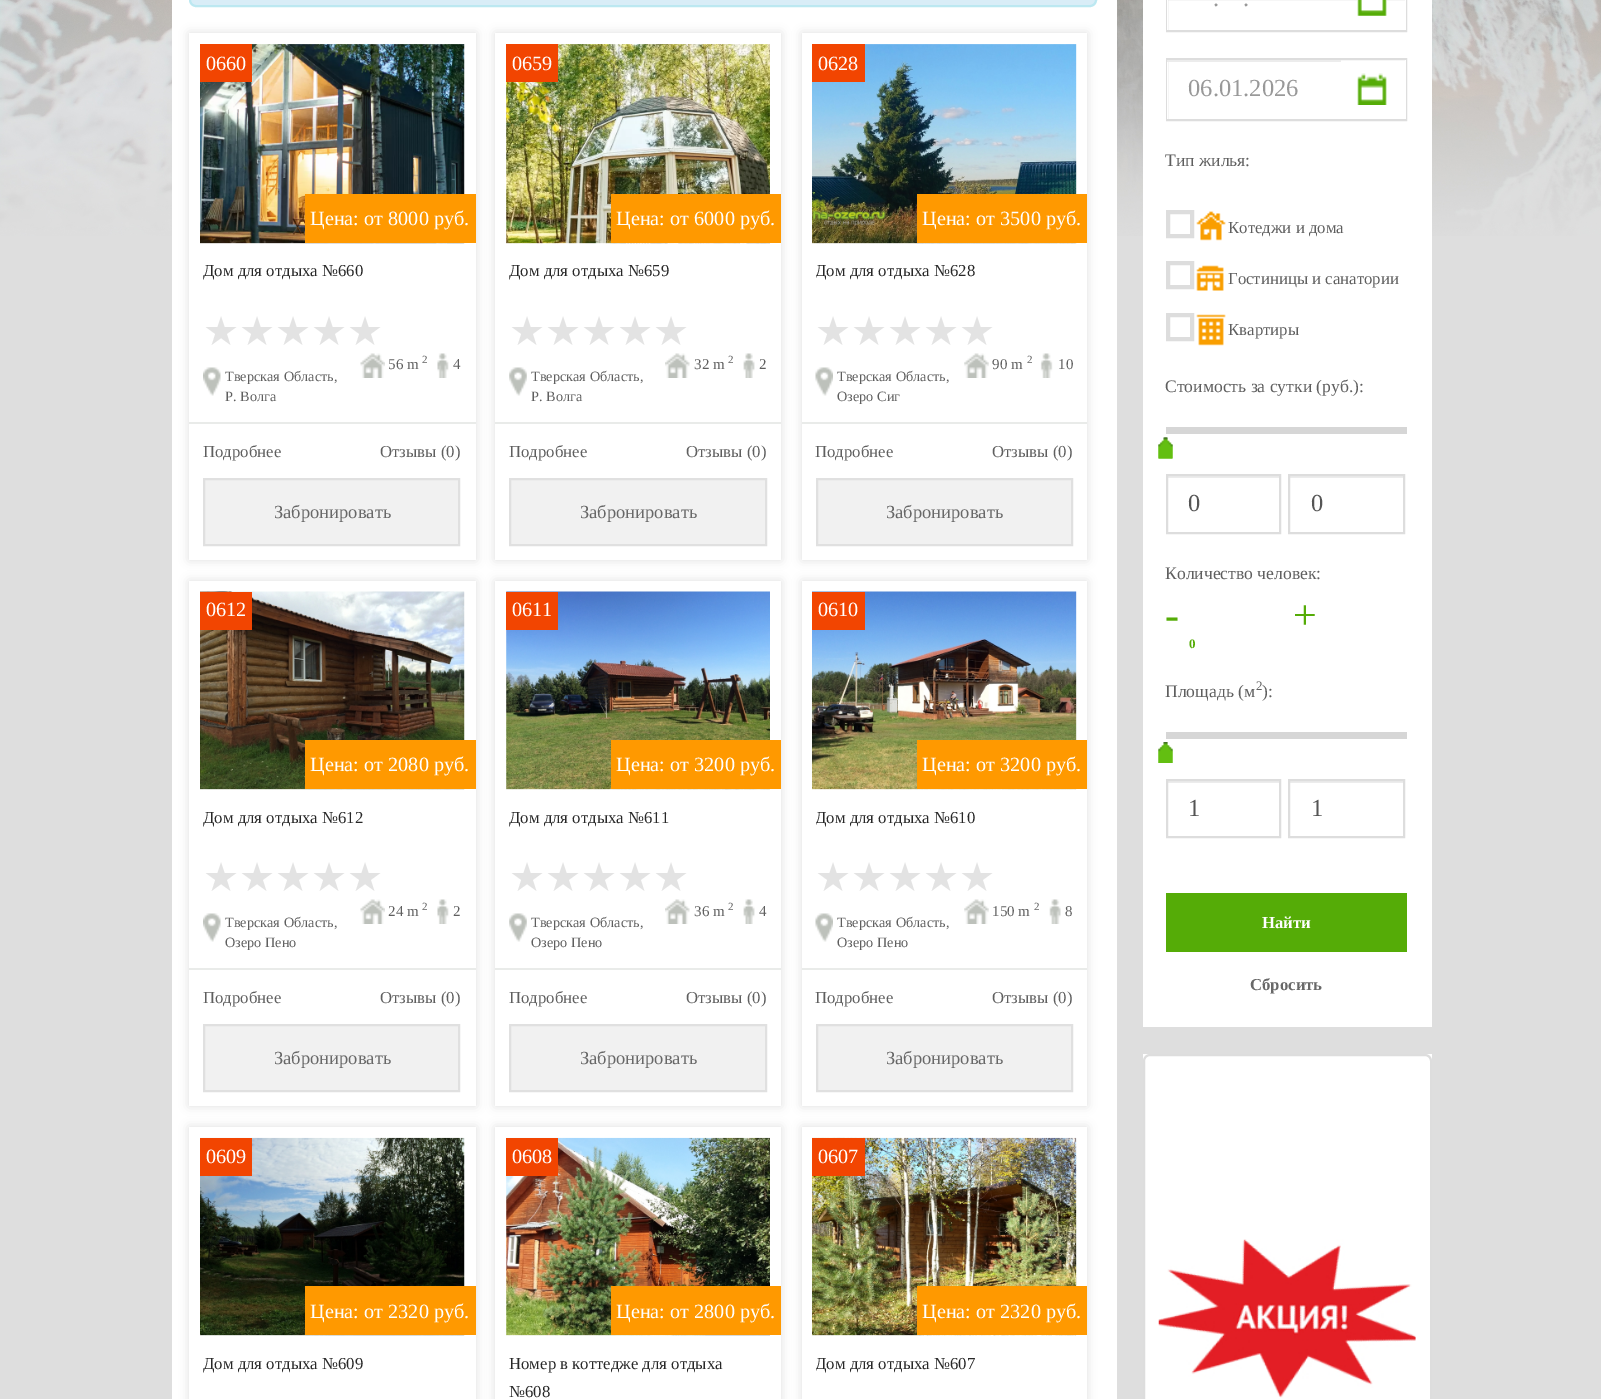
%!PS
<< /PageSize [1601 1399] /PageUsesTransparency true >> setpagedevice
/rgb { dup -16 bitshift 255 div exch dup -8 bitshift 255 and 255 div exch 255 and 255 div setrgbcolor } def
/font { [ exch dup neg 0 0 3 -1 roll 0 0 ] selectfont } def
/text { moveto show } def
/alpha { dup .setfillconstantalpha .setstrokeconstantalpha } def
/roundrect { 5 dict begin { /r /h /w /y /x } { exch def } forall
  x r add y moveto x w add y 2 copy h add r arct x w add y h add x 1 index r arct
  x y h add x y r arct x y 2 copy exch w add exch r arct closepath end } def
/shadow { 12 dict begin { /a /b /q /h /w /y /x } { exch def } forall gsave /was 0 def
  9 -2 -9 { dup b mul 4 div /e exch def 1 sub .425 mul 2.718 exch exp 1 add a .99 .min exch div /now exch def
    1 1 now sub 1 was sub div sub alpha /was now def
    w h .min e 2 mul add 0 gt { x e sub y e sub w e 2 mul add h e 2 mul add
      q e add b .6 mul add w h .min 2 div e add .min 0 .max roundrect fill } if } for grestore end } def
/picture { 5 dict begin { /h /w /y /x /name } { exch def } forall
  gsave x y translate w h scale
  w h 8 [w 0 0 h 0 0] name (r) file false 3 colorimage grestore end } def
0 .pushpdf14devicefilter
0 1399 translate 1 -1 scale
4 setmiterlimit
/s1 { /LiberationSerif-Regular 20.25 font 16#FFFFFF rgb } def
/s2 { /LiberationSerif-Regular 16.75 font 16#282828 rgb } def
/s3 { /DejaVuSans-Regular 40.25 font 16#E3E3E3 rgb } def
/s4 { /LiberationSerif-Regular 15 font 16#5F5F5F rgb } def
/s5 { /LiberationSerif-Regular 11 font 16#5F5F5F rgb } def
/s6 { /LiberationSerif-Regular 14.25 font 16#5F5F5F rgb } def
/s7 { /LiberationSerif-Regular 16.75 font 16#5F5F5F rgb } def
/s8 { /LiberationSerif-Regular 18.5 font 16#686868 rgb } def
/s9 { /LiberationSerif-Regular 24.5 font 16#999999 rgb } def
/s10 { /LiberationSerif-Regular 17.6 font 16#5F5F5F rgb } def
/s11 { /LiberationSerif-Regular 24.5 font 16#555555 rgb } def
/s12 { /LiberationSerif-Regular 42 font 16#55AC07 rgb } def
/s13 { /LiberationSerif-Bold 13 font 16#55AC07 rgb } def
/s14 { /LiberationSerif-Regular 13 font 16#5F5F5F rgb } def
/s15 { /LiberationSerif-Bold 16.75 font 16#FFFFFF rgb } def
/s16 { /LiberationSerif-Bold 16.75 font 16#686868 rgb } def
16#DEDEDE rgb
0 0 1601 1399 rectfill
(pic1.raw) 0 0 1601 236 picture
16#FFFFFF rgb
172 0 945 1399 rectfill
16#D9EDF7 rgb
190 -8 906 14 6 roundrect gsave fill grestore
16#BCE8F1 rgb
2 setlinewidth
stroke
gsave
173 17 moveto 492 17 lineto 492 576 lineto 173 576 lineto closepath 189 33 moveto 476 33 lineto 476 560 lineto 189 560 lineto closepath eoclip newpath
16#DEDEDE rgb
189 33 287 527 0 5 1 shadow
grestore
(pic2.raw) 200 44 265 200 picture
16#F24501 rgb
200 44 52 38 rectfill
s1
(0660) 206 70 text
16#FF9900 rgb
305 194 171 49 rectfill
s1
(Цена: от 8000 руб.) 310 225 text
s2
(Дом для отдыха №660) 203 276 text
s3
(★★★★★) 203 345 text
(pic3.raw) 360 353 25 25 picture
s4
(56 m) 388 369 text
s5
(2) 422 363 text
(pic4.raw) 437 353 12 25 picture
s4
(4) 453 369 text
(pic5.raw) 203 367 18 29 picture
s6
(Тверская Область,) 225 381 text
(Р. Волга) 225 401 text
16#E9EBE9 rgb
189 422 287 2 rectfill
s7
(Подробнее) 203 457 text
(Отзывы \(0\)) 380 457 text
16#F1F1F1 rgb
204 479 moveto 459 479 lineto 459 545 lineto 204 545 lineto closepath gsave fill grestore
16#E0E0E0 rgb
stroke
s8
(Забронировать) 274 518 text
gsave
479 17 moveto 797 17 lineto 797 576 lineto 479 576 lineto closepath 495 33 moveto 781 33 lineto 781 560 lineto 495 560 lineto closepath eoclip newpath
16#DEDEDE rgb
495 33 286 527 0 5 1 shadow
grestore
(pic6.raw) 506 44 264 200 picture
16#F24501 rgb
506 44 52 38 rectfill
s1
(0659) 512 70 text
16#FF9900 rgb
611 194 170 49 rectfill
s1
(Цена: от 6000 руб.) 616 225 text
s2
(Дом для отдыха №659) 509 276 text
s3
(★★★★★) 509 345 text
(pic7.raw) 665 353 25 25 picture
s4
(32 m) 694 369 text
s5
(2) 728 363 text
(pic8.raw) 743 353 12 25 picture
s4
(2) 759 369 text
(pic9.raw) 509 367 18 29 picture
s6
(Тверская Область,) 531 381 text
(Р. Волга) 531 401 text
16#E9EBE9 rgb
495 422 286 2 rectfill
s7
(Подробнее) 509 457 text
(Отзывы \(0\)) 686 457 text
16#F1F1F1 rgb
510 479 moveto 766 479 lineto 766 545 lineto 510 545 lineto closepath gsave fill grestore
16#E0E0E0 rgb
stroke
s8
(Забронировать) 580 518 text
gsave
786 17 moveto 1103 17 lineto 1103 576 lineto 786 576 lineto closepath 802 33 moveto 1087 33 lineto 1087 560 lineto 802 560 lineto closepath eoclip newpath
16#DEDEDE rgb
802 33 285 527 0 5 1 shadow
grestore
(pic10.raw) 812 44 265 200 picture
16#F24501 rgb
812 44 53 38 rectfill
s1
(0628) 818 70 text
16#FF9900 rgb
917 194 170 49 rectfill
s1
(Цена: от 3500 руб.) 922 225 text
gsave
816 257 257 51 rectclip
s2
(Дом для отдыха №628) 815 276 text
grestore
s3
(★★★★★) 815 345 text
(pic11.raw) 964 353 25 25 picture
s4
(90 m) 992 369 text
s5
(2) 1027 363 text
(pic12.raw) 1040 353 13 25 picture
s4
(10) 1058 369 text
(pic13.raw) 815 367 18 29 picture
s6
(Тверская Область,) 837 381 text
(Озеро Сиг) 837 401 text
16#E9EBE9 rgb
802 422 285 2 rectfill
s7
(Подробнее) 815 457 text
(Отзывы \(0\)) 992 457 text
16#F1F1F1 rgb
817 479 moveto 1072 479 lineto 1072 545 lineto 817 545 lineto closepath gsave fill grestore
16#E0E0E0 rgb
stroke
s8
(Забронировать) 886 518 text
gsave
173 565 moveto 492 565 lineto 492 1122 lineto 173 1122 lineto closepath 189 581 moveto 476 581 lineto 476 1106 lineto 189 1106 lineto closepath eoclip newpath
16#DEDEDE rgb
189 581 287 525 0 5 1 shadow
grestore
(pic14.raw) 200 591 265 199 picture
16#F24501 rgb
200 592 52 38 rectfill
s1
(0612) 206 616 text
16#FF9900 rgb
305 740 171 49 rectfill
s1
(Цена: от 2080 руб.) 310 771 text
s2
(Дом для отдыха №612) 203 823 text
s3
(★★★★★) 203 891 text
(pic3.raw) 360 899 25 25 picture
s4
(24 m) 388 916 text
s5
(2) 422 910 text
(pic4.raw) 437 899 12 25 picture
s4
(2) 453 916 text
(pic5.raw) 203 913 18 29 picture
s6
(Тверская Область,) 225 927 text
(Озеро Пено) 225 947 text
16#E9EBE9 rgb
189 968 287 2 rectfill
s7
(Подробнее) 203 1003 text
(Отзывы \(0\)) 380 1003 text
16#F1F1F1 rgb
204 1025 moveto 459 1025 lineto 459 1091 lineto 204 1091 lineto closepath gsave fill grestore
16#E0E0E0 rgb
stroke
s8
(Забронировать) 274 1064 text
gsave
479 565 moveto 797 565 lineto 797 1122 lineto 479 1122 lineto closepath 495 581 moveto 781 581 lineto 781 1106 lineto 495 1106 lineto closepath eoclip newpath
16#DEDEDE rgb
495 581 286 525 0 5 1 shadow
grestore
(pic15.raw) 506 591 264 199 picture
16#F24501 rgb
506 592 52 38 rectfill
s1
(0611) 512 616 text
16#FF9900 rgb
611 740 170 49 rectfill
s1
(Цена: от 3200 руб.) 616 771 text
s2
(Дом для отдыха №611) 509 823 text
s3
(★★★★★) 509 891 text
(pic7.raw) 665 899 25 25 picture
s4
(36 m) 694 916 text
s5
(2) 728 910 text
(pic8.raw) 743 899 12 25 picture
s4
(4) 759 916 text
(pic9.raw) 509 913 18 29 picture
s6
(Тверская Область,) 531 927 text
(Озеро Пено) 531 947 text
16#E9EBE9 rgb
495 968 286 2 rectfill
s7
(Подробнее) 509 1003 text
(Отзывы \(0\)) 686 1003 text
16#F1F1F1 rgb
510 1025 moveto 766 1025 lineto 766 1091 lineto 510 1091 lineto closepath gsave fill grestore
16#E0E0E0 rgb
stroke
s8
(Забронировать) 580 1064 text
gsave
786 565 moveto 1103 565 lineto 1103 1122 lineto 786 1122 lineto closepath 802 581 moveto 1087 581 lineto 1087 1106 lineto 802 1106 lineto closepath eoclip newpath
16#DEDEDE rgb
802 581 285 525 0 5 1 shadow
grestore
(pic16.raw) 812 591 265 199 picture
16#F24501 rgb
812 592 53 38 rectfill
s1
(0610) 818 616 text
16#FF9900 rgb
917 740 170 49 rectfill
s1
(Цена: от 3200 руб.) 922 771 text
gsave
816 803 257 51 rectclip
s2
(Дом для отдыха №610) 815 823 text
grestore
s3
(★★★★★) 815 891 text
(pic11.raw) 964 899 25 25 picture
s4
(150 m) 992 916 text
s5
(2) 1034 910 text
(pic17.raw) 1049 899 12 25 picture
s4
(8) 1065 916 text
(pic13.raw) 815 913 18 29 picture
s6
(Тверская Область,) 837 927 text
(Озеро Пено) 837 947 text
16#E9EBE9 rgb
802 968 285 2 rectfill
s7
(Подробнее) 815 1003 text
(Отзывы \(0\)) 992 1003 text
16#F1F1F1 rgb
817 1025 moveto 1072 1025 lineto 1072 1091 lineto 817 1091 lineto closepath gsave fill grestore
16#E0E0E0 rgb
stroke
s8
(Забронировать) 886 1064 text
gsave
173 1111 moveto 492 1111 lineto 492 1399 lineto 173 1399 lineto closepath 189 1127 moveto 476 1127 lineto 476 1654 lineto 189 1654 lineto closepath eoclip newpath
16#DEDEDE rgb
189 1127 287 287 0 5 1 shadow
grestore
(pic18.raw) 200 1137 265 199 picture
16#F24501 rgb
200 1138 52 38 rectfill
s1
(0609) 206 1163 text
16#FF9900 rgb
305 1286 171 49 rectfill
s1
(Цена: от 2320 руб.) 310 1318 text
s2
(Дом для отдыха №609) 203 1369 text
gsave
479 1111 moveto 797 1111 lineto 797 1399 lineto 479 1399 lineto closepath 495 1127 moveto 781 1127 lineto 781 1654 lineto 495 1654 lineto closepath eoclip newpath
16#DEDEDE rgb
495 1127 286 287 0 5 1 shadow
grestore
(pic19.raw) 506 1137 264 199 picture
16#F24501 rgb
506 1138 52 38 rectfill
s1
(0608) 512 1163 text
16#FF9900 rgb
611 1286 170 49 rectfill
s1
(Цена: от 2800 руб.) 616 1318 text
s2
(Номер в коттедже для отдыха) 509 1369 text
(№608) 509 1397 text
gsave
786 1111 moveto 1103 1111 lineto 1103 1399 lineto 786 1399 lineto closepath 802 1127 moveto 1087 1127 lineto 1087 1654 lineto 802 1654 lineto closepath eoclip newpath
16#DEDEDE rgb
802 1127 285 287 0 5 1 shadow
grestore
(pic20.raw) 812 1137 265 199 picture
16#F24501 rgb
812 1138 53 38 rectfill
s1
(0607) 818 1163 text
16#FF9900 rgb
917 1286 170 49 rectfill
s1
(Цена: от 2320 руб.) 922 1318 text
gsave
816 1351 257 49 rectclip
s2
(Дом для отдыха №607) 815 1369 text
grestore
1143 0 289 1027 rectfill
16#DDDDDD rgb
1167 -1 239 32 rectstroke
16#FFFFFF rgb
1167 0 1 30 rectfill
s9
(.) 1213 6 text
(.) 1243 6 text
16#FFFFFF rgb
1405 0 1 30 rectfill
(pic21.raw) 1357 0 30 16 picture
16#DDDDDD rgb
1167 59 239 61 rectstroke
16#FFFFFF rgb
1167 62 1 57 rectfill
16#ECECEC rgb
1167 60 174 2 rectfill
s9
(06.01.2026) 1188 96 text
16#FFFFFF rgb
1405 60 1 59 rectfill
(pic22.raw) 1357 73 30 32 picture
s10
(Тип жилья:) 1165 166 text
16#DDDDDD rgb
4 setlinewidth
1168 212 24 24 rectstroke
(pic23.raw) 1196 211 30 30 picture
s7
(Котеджи и дома) 1228 233 text
16#DDDDDD rgb
1168 263 24 24 rectstroke
(pic24.raw) 1196 265 28 26 picture
s7
(Гостиницы и санатории) 1228 284 text
16#DDDDDD rgb
1168 315 24 24 rectstroke
(pic25.raw) 1196 314 30 32 picture
s7
(Квартиры) 1228 335 text
s10
(Стоимость за сутки \(руб.\):) 1165 392 text
16#D6D6D6 rgb
1166 427 241 7 rectfill
(pic26.raw) 1158 437 15 22 picture
(pic27.raw) 1158 437 15 22 picture
16#ECECEC rgb
1167 476 112 2 rectfill
16#DDDDDD rgb
2 setlinewidth
1167 475 113 58 rectstroke
s11
(0) 1188 511 text
16#ECECEC rgb
1290 476 114 2 rectfill
16#DDDDDD rgb
1289 475 115 58 rectstroke
s11
(0) 1311 511 text
s10
(Количество человек:) 1165 579 text
s12
(-) 1165 629 text
(+) 1293 629 text
s13
(0) 1189 648 text
s10
(Площадь \(м) 1165 697 text
s14
(2) 1256 690 text
s10
(\):) 1262 697 text
16#D6D6D6 rgb
1166 732 241 7 rectfill
(pic28.raw) 1158 742 15 21 picture
(pic29.raw) 1158 742 15 21 picture
16#ECECEC rgb
1167 781 112 2 rectfill
16#DDDDDD rgb
1167 780 113 57 rectstroke
s11
(1) 1188 816 text
16#ECECEC rgb
1290 781 114 2 rectfill
16#DDDDDD rgb
1289 780 115 57 rectstroke
s11
(1) 1311 816 text
16#55AC07 rgb
1166 893 241 59 rectfill
s15
(Найти) 1262 928 text
s16
(Сбросить) 1250 990 text
16#FFFFFF rgb
1143 1054 289 345 rectfill
16#DDDDDD rgb
1144 1055 287 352 6 roundrect stroke
(pic30.raw) 1158 1239 258 159 picture
.poppdf14devicefilter showpage
